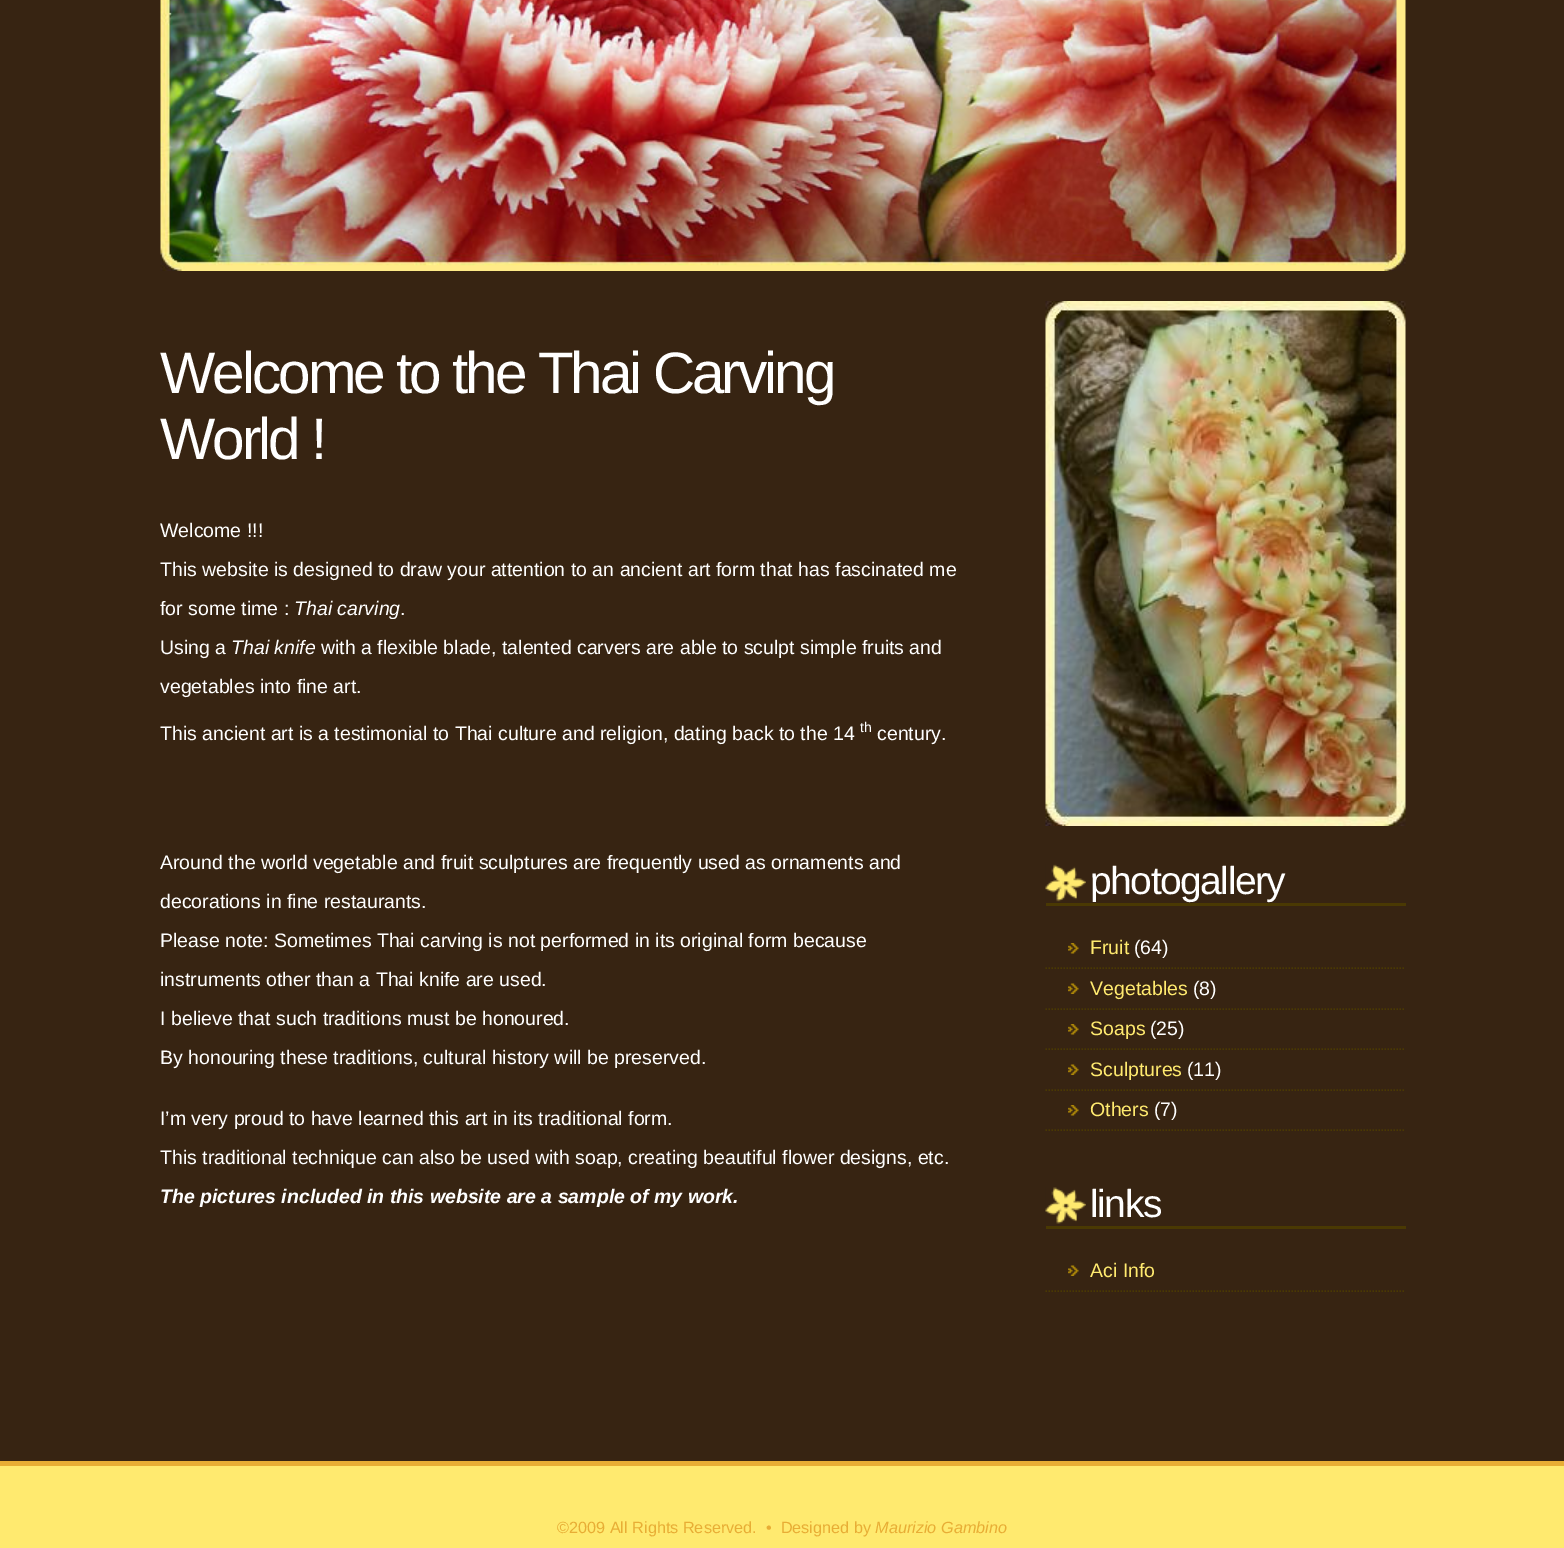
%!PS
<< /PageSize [1564 1548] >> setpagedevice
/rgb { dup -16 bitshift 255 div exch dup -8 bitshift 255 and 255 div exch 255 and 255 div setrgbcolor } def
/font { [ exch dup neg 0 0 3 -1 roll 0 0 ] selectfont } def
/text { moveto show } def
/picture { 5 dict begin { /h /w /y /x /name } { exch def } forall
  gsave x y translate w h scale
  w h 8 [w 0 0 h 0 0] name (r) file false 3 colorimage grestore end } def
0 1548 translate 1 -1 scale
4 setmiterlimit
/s1 { /LiberationSans-Regular 19.5 font 16#FFFFFF rgb } def
/s2 { /LiberationSans-Italic 19.5 font 16#FFFFFF rgb } def
/s3 { /LiberationSans-Regular 14 font 16#FFFFFF rgb } def
/s4 { /LiberationSans-BoldItalic 19.5 font 16#FFFFFF rgb } def
/s5 { /LiberationSans-Regular 19.5 font 16#FFEA6F rgb } def
/s6 { /LiberationSans-Regular 16.25 font 16#E8AD35 rgb } def
/s7 { /LiberationSans-Italic 16.25 font 16#E8AD35 rgb } def
16#372412 rgb
0 0 1564 1548 rectfill
(pic1.raw) 160 0 1246 271 picture
/LiberationSans-Regular 58.5 font
16#FFFFFF rgb
160 393 moveto -3 0 (Welcome to the Thai Carving) ashow
160 459 moveto -3 0 (World !) ashow
s1
(Welcome !!!) 160 537 text
(This website is designed to draw your attention to an ancient art form that has fascinated me) 160 576 text
(for some time :) 160 615 text
s2
(Thai carving) 294 615 text
s1
(.) 400 615 text
(Using a) 160 654 text
s2
(Thai knife) 231 654 text
s1
(with a flexible blade, talented carvers are able to sculpt simple fruits and) 321 654 text
(vegetables into fine art.) 160 693 text
(This ancient art is a testimonial to Thai culture and religion, dating back to the 14) 160 740 text
s3
(th) 860 732 text
s1
(century.) 877 740 text
(Around the world vegetable and fruit sculptures are frequently used as ornaments and) 160 869 text
(decorations in fine restaurants.) 160 908 text
(Please note: Sometimes Thai carving is not performed in its original form because) 160 947 text
(instruments other than a Thai knife are used.) 160 986 text
(I believe that such traditions must be honoured.) 160 1025 text
(By honouring these traditions, cultural history will be preserved.) 160 1064 text
(I’m very proud to have learned this art in its traditional form.) 160 1125 text
(This traditional technique can also be used with soap, creating beautiful flower designs, etc.) 160 1164 text
s4
(The pictures included in this website are a sample of my work.) 160 1203 text
(pic2.raw) 1045 301 361 525 picture
(pic3.raw) 1045 864 41 38 picture
16#4A3903 rgb
1046 903 360 3 rectfill
/LiberationSans-Regular 39 font
16#FFFFFF rgb
1090 894 moveto -1.5 0 (photogallery) ashow
(pic4.raw) 1068 943 11 11 picture
16#4A3903 rgb
1.5 setlinewidth
[1.5 1.5] 0 setdash
1045.5 968 moveto 1405.5 968 lineto stroke
s5
(Fruit) 1090 954 text
s1
(\(64\)) 1134 954 text
(pic5.raw) 1068 983 11 11 picture
16#4A3903 rgb
1045.5 1009 moveto 1405.5 1009 lineto stroke
s5
(Vegetables) 1090 995 text
s1
(\(8\)) 1193 995 text
(pic4.raw) 1068 1024 11 11 picture
16#4A3903 rgb
1045.5 1049 moveto 1405.5 1049 lineto stroke
s5
(Soaps) 1090 1035 text
s1
(\(25\)) 1150 1035 text
(pic5.raw) 1068 1064 11 11 picture
16#4A3903 rgb
1045.5 1090 moveto 1405.5 1090 lineto stroke
s5
(Sculptures) 1090 1076 text
s1
(\(11\)) 1187 1076 text
(pic4.raw) 1068 1105 11 11 picture
16#4A3903 rgb
1045.5 1130 moveto 1405.5 1130 lineto stroke
s5
(Others) 1090 1116 text
s1
(\(7\)) 1154 1116 text
(pic6.raw) 1045 1187 41 37 picture
16#4A3903 rgb
1046 1226 360 3 rectfill
/LiberationSans-Regular 39 font
16#FFFFFF rgb
1090 1217 moveto -1.5 0 (links) ashow
(pic5.raw) 1068 1265 11 11 picture
16#4A3903 rgb
1045.5 1291 moveto 1405.5 1291 lineto stroke
s5
(Aci Info) 1090 1277 text
0 1466 1564 82 rectfill
16#E8AD35 rgb
0 1461 1564 5 rectfill
s6
(©2009 All Rights Reserved.  •  Designed by) 557 1533 text
s7
(Maurizio Gambino) 875 1533 text
showpage
